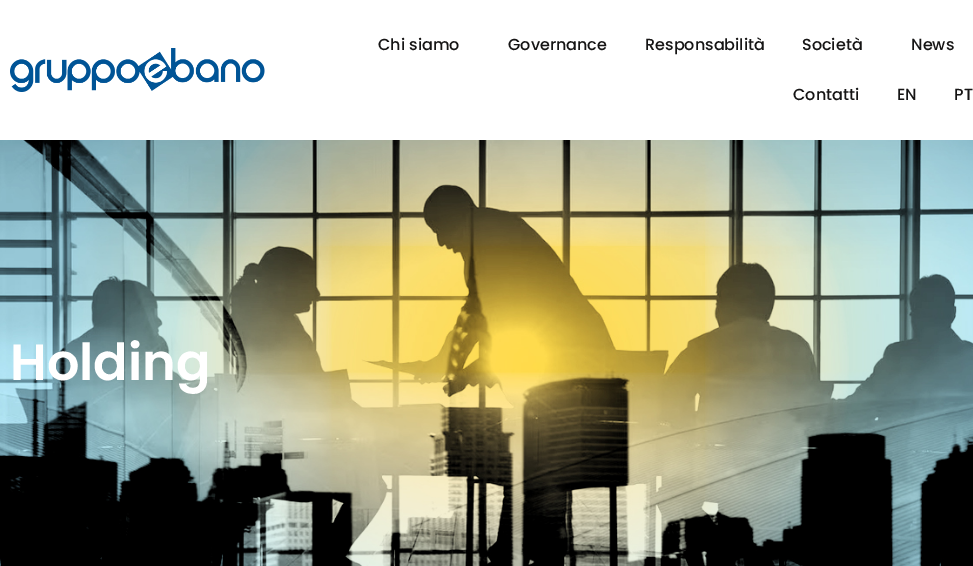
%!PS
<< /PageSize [973 566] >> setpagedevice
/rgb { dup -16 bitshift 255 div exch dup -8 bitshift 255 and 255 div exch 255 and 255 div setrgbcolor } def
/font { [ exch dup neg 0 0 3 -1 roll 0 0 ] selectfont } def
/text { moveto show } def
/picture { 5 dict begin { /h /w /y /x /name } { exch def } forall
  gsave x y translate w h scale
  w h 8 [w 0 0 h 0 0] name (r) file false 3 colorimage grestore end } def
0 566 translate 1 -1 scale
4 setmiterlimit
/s1 { /Poppins-Medium 16 font 16#161515 rgb } def
/s2 { /Poppins-SemiBold 51 font 16#FFFFFF rgb } def
16#FFFFFF rgb
0 0 973 566 rectfill
(pic1.raw) 10 48 255 44 picture
s1
(Chi siamo) 378 50 text
(Governance) 508 50 text
(Responsabilità) 645 50 text
(Società) 802 50 text
(News) 911 50 text
(Contatti) 793 100 text
(EN) 897 100 text
(PT) 954 100 text
(pic2.raw) 0 140 973 426 picture
s2
(Holding) 10 380 text
showpage
